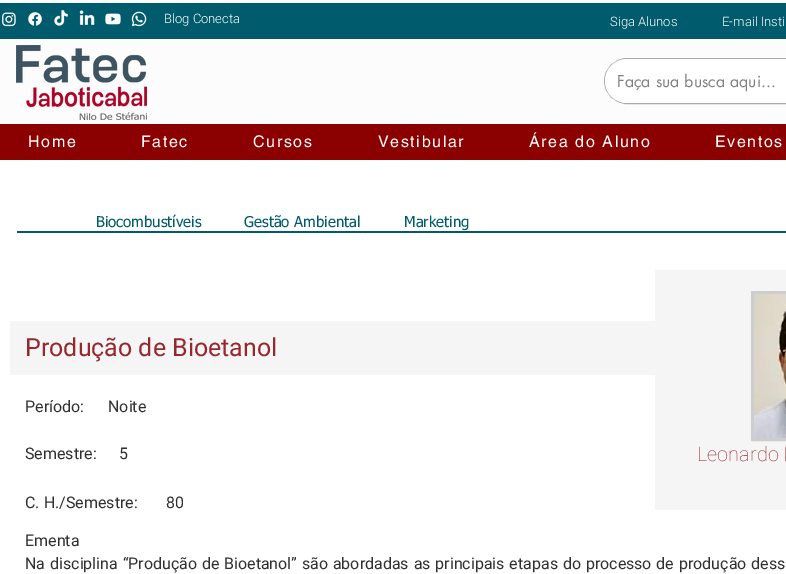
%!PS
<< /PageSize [786 574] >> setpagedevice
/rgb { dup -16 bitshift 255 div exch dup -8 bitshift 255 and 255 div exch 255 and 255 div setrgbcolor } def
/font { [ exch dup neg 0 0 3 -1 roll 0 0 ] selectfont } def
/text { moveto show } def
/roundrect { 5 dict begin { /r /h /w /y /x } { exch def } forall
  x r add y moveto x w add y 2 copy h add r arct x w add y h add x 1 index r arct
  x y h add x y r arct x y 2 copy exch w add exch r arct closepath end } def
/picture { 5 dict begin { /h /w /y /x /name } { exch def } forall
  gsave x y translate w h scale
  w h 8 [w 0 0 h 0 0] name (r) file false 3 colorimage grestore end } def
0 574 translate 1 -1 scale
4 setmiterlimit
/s1 { /Heebo-Light 13 font 16#FFFFFF rgb } def
/s2 { /futura-Regular 16 font 16#808080 rgb } def
/s3 { /tahoma-Regular 15 font 16#005C6D rgb } def
/s4 { /Roboto-Regular 25 font 16#96272D rgb } def
/s5 { /Roboto-Regular 16 font 16#313131 rgb } def
/s6 { /Roboto-Thin 20 font 16#96272D rgb } def
16#FFFFFF rgb
0 0 786 574 rectfill
16#FCFCFC rgb
0 0 786 161 rectfill
16#005C6D rgb
0 3 786 36 rectfill
(pic1.raw) 2 12 14 15 picture
(pic2.raw) 28 12 14 14 picture
(pic3.raw) 54 10 14 16 picture
(pic4.raw) 79 10 16 15 picture
(pic5.raw) 105 13 16 12 picture
(pic6.raw) 131 11 16 16 picture
s1
(Blog Conecta) 164 23 text
(Siga Alunos) 610 26 text
(E-mail Insti) 722 26 text
(pic7.raw) 16 45 131 75 picture
16#AAAAAA rgb
604.5 58.5 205 45 22.5 roundrect stroke
16#FFFFFF rgb
605 59 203 44 22 roundrect fill
s2
(Faça sua busca aqui...) 617 87 text
16#8B0000 rgb
0 124 786 36 rectfill
/helvetica-Regular 16 font
16#FFFFFF rgb
28 147 moveto 1.6 0 (Home) ashow
141 147 moveto 1.6 0 (Fatec) ashow
253 147 moveto 1.6 0 (Cursos) ashow
378 147 moveto 1.6 0 (Vestibular) ashow
529 147 moveto 1.6 0 (Área do Aluno) ashow
715 147 moveto 1.6 0 (Eventos) ashow
s3
(Biocombustíveis) 96 227 text
(Gestão Ambiental) 244 227 text
(Marketing) 404 227 text
17 231 769 2 rectfill
16#F5F5F5 rgb
655 270 131 240 rectfill
10 321 645 54 rectfill
s4
(Produção de Bioetanol) 25 356 text
16#CDCDCD rgb
3 setlinewidth
752.5 292.5 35 147 rectstroke
(pic8.raw) 754 294 32 144 picture
s5
(Período:) 25 412 text
(Noite) 108 412 text
(Semestre:) 25 459 text
(5) 119 459 text
s6
(Leonardo L) 697 461 text
s5
(C. H./Semestre:) 25 508 text
(80) 166 508 text
(Ementa) 25 546 text
25 569 moveto 0.9 0 32 (Na disciplina “Produção de Bioetanol” são abordadas as principais etapas do processo de produção dess) widthshow
showpage
